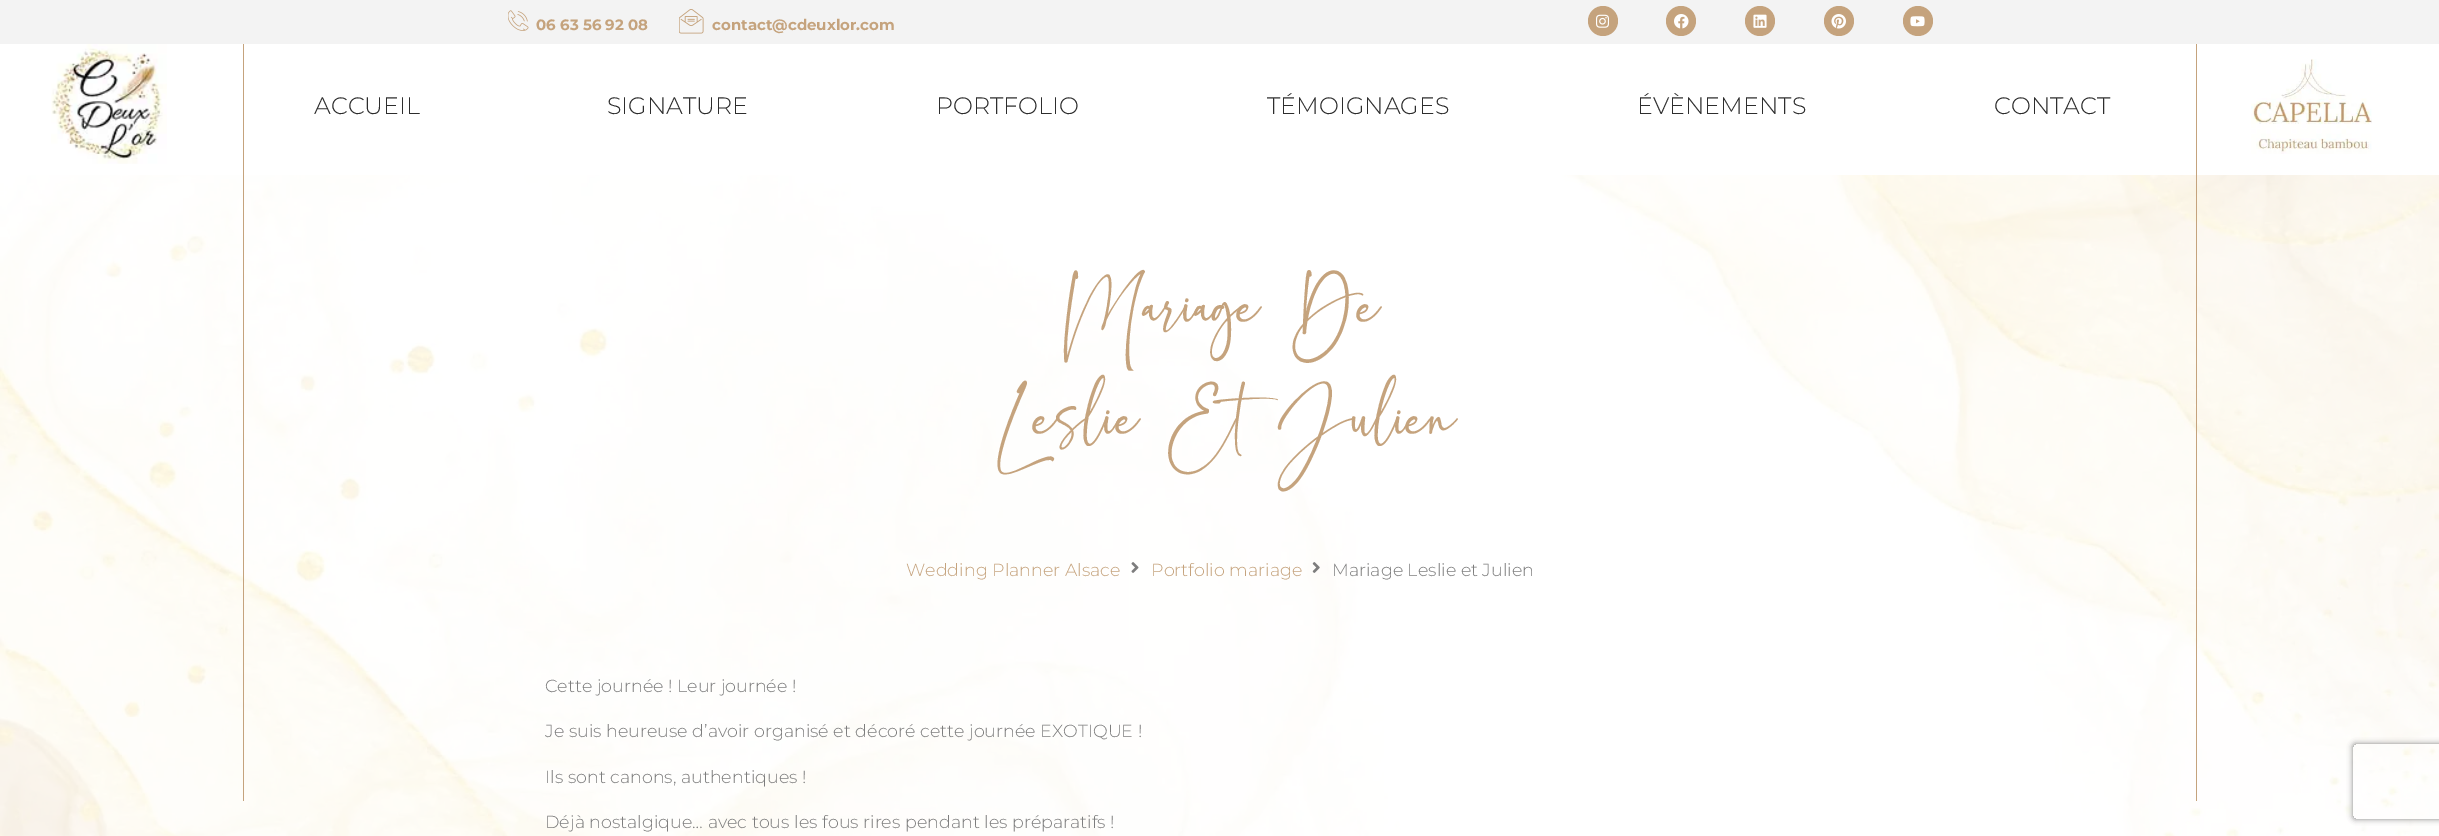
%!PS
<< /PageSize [2439 836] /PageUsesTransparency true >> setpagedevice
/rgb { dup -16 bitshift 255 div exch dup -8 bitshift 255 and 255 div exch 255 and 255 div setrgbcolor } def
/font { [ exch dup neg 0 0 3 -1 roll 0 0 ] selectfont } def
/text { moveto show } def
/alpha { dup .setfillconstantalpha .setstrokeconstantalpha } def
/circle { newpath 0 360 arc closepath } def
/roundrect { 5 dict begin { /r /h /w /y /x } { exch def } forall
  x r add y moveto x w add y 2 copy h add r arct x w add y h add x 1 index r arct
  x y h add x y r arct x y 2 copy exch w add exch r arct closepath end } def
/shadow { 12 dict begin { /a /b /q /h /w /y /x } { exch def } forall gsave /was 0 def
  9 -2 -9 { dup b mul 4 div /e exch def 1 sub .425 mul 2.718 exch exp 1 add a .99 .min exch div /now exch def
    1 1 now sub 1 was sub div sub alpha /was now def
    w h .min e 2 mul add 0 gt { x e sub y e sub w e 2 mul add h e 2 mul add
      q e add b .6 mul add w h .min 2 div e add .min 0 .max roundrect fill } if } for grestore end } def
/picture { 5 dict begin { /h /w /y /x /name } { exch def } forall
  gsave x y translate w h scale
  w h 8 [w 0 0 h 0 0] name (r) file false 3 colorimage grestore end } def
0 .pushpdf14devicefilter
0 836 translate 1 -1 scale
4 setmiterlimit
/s1 { /Montserrat-Bold 15 font 16#C5A37D rgb } def
/s2 { /Montserrat-Light 23.75 font 16#2D2D2D rgb } def
/s3 { /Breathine-Thin 75 font 16#C5A37D rgb } def
/s4 { /Montserrat-Light 17.5 font 16#C5A37D rgb } def
/s5 { /Montserrat-Light 17.5 font 16#7D7D7D rgb } def
16#FFFFFF rgb
0 0 2439 836 rectfill
16#F3F3F3 rgb
0 0 2439 44 rectfill
(pic1.raw) 508 10 21 21 picture
s1
(06 63 56 92 08) 536 30 text
(pic2.raw) 679 9 25 25 picture
(contact@cdeuxlor.com) 712 30 text
1603 21 15 circle fill
(pic3.raw) 1596 14 13 14 picture
1681 21 15 circle fill
(pic4.raw) 1674 14 15 15 picture
1760 21 15 circle fill
(pic5.raw) 1753 14 14 14 picture
1839 21 15 circle fill
(pic6.raw) 1831 14 15 15 picture
1918 21 15 circle fill
(pic7.raw) 1910 16 15 11 picture
(pic10.raw) 0 175 2439 661 picture
243 44 1 757 rectfill
(pic8.raw) 51 44 116 120 picture
s2
(ACCUEIL) 314 114 text
(SIGNATURE) 607 114 text
(PORTFOLIO) 936 114 text
(TÉMOIGNAGES) 1267 114 text
(ÉVÈNEMENTS) 1637 114 text
(CONTACT) 1994 114 text
(pic9.raw) 2251 59 121 95 picture
16#C5A37D rgb
2196 44 1 757 rectfill
s3
(Mariage De) 1060 344 text
(Leslie Et Julien) 984 456 text
s4
(Wedding Planner Alsace) 906 576 text
(pic11.raw) 1131 562 8 11 picture
(Portfolio mariage) 1151 576 text
(pic12.raw) 1312 562 8 11 picture
s5
(Mariage Leslie et Julien) 1332 576 text
(Cette journée ! Leur journée !) 545 692 text
(Je suis heureuse d’avoir organisé et décoré cette journée EXOTIQUE !) 545 737 text
(Ils sont canons, authentiques !) 545 783 text
(Déjà nostalgique… avec tous les fous rires pendant les préparatifs !) 545 828 text
gsave
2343 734 moveto 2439 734 lineto 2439 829 lineto 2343 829 lineto closepath 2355.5 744 moveto 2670.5 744 lineto 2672 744 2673 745 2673 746.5 curveto 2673 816.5 lineto 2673 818 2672 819 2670.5 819 curveto 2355.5 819 lineto 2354 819 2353 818 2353 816.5 curveto 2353 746.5 lineto 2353 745 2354 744 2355.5 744 curveto closepath eoclip newpath
16#808080 rgb
2353 744 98 75 2.5 3 1 shadow
grestore
.poppdf14devicefilter showpage
